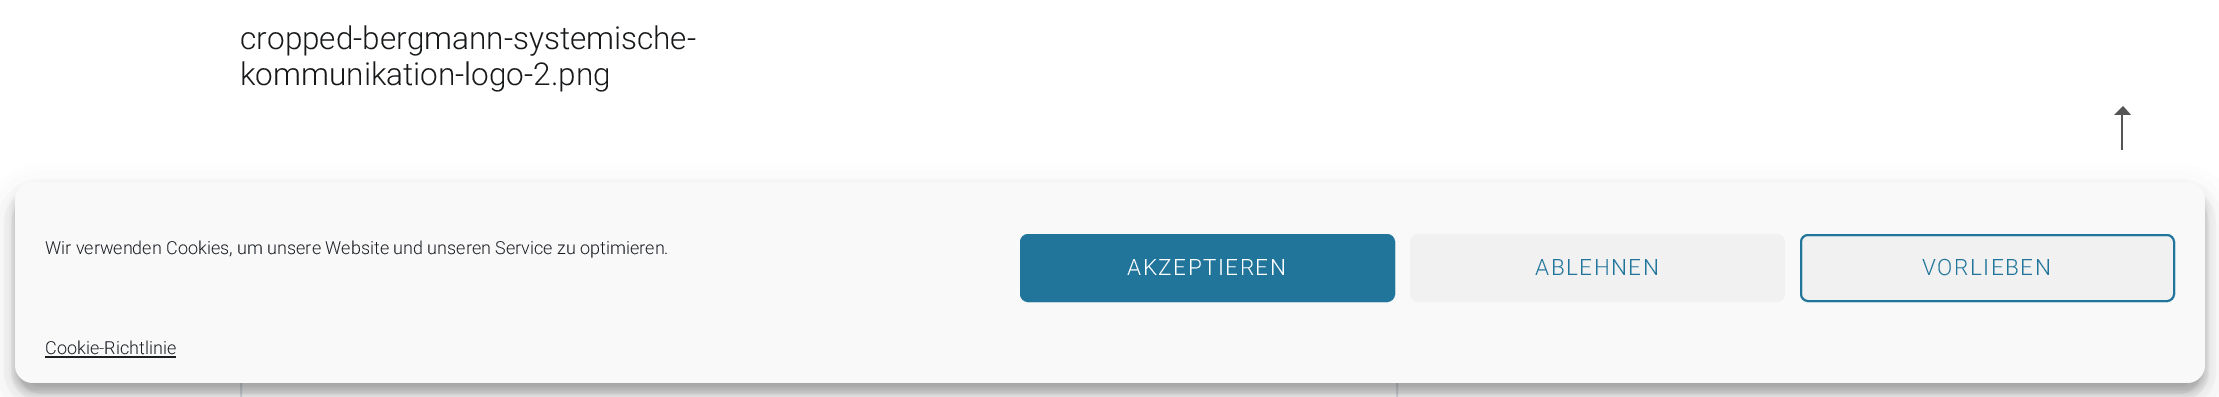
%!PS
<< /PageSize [2219 397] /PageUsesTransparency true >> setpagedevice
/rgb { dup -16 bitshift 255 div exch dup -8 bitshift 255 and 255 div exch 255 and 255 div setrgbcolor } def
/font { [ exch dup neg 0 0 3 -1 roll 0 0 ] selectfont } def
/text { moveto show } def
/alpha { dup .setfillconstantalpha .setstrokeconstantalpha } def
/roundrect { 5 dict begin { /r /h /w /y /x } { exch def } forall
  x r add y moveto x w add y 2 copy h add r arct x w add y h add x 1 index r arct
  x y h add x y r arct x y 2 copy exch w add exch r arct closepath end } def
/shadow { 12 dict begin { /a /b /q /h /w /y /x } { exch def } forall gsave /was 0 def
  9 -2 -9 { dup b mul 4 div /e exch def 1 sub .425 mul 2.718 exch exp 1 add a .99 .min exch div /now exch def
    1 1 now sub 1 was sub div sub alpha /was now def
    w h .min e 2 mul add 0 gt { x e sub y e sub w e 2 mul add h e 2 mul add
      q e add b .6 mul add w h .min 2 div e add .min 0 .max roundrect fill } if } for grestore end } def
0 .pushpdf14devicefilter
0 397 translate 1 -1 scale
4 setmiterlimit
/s1 { /Roboto-Light 31.5 font 16#16181A rgb } def
/s2 { /Roboto-Light 18 font 16#191E23 rgb } def
16#FFFFFF rgb
0 0 2219 397 rectfill
s1
(cropped-bergmann-systemische-) 240 49 text
(kommunikation-logo-2.png) 240 85 text
16#DEE2E6 rgb
2 setlinewidth
241 367 1156 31 rectstroke
16#555555 rgb
2123 106 moveto 2131 115 lineto 2114 115 lineto closepath 2121 150 moveto 2121 115 lineto 2123 115 lineto 2123 150 lineto closepath fill
16#000000 rgb
15 191 2190 201 18 4.5 0.23 shadow
15 197 2190 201 18 15 0.19 shadow
16#F9F9F9 rgb
15 182 2190 201 18 roundrect fill
s2
(Wir verwenden Cookies, um unsere Website und unseren Service zu optimieren.) 45 254 text
16#21759B rgb
1021 235 373 66 7 roundrect gsave fill grestore
stroke
/Roboto-Light 22.5 font
16#FFFFFF rgb
1127 275 moveto 1.5 0 (AKZEPTIEREN) ashow
16#F1F1F1 rgb
1410 234 375 68 8 roundrect fill
16#21759B rgb
1535 275 moveto 1.5 0 (ABLEHNEN) ashow
16#F1F1F1 rgb
1801 235 373 66 7 roundrect gsave fill grestore
16#21759B rgb
stroke
1922 275 moveto 1.5 0 (VORLIEBEN) ashow
s2
(Cookie-Richtlinie) 45 354 text
45 356 131 2 rectfill
.poppdf14devicefilter showpage
